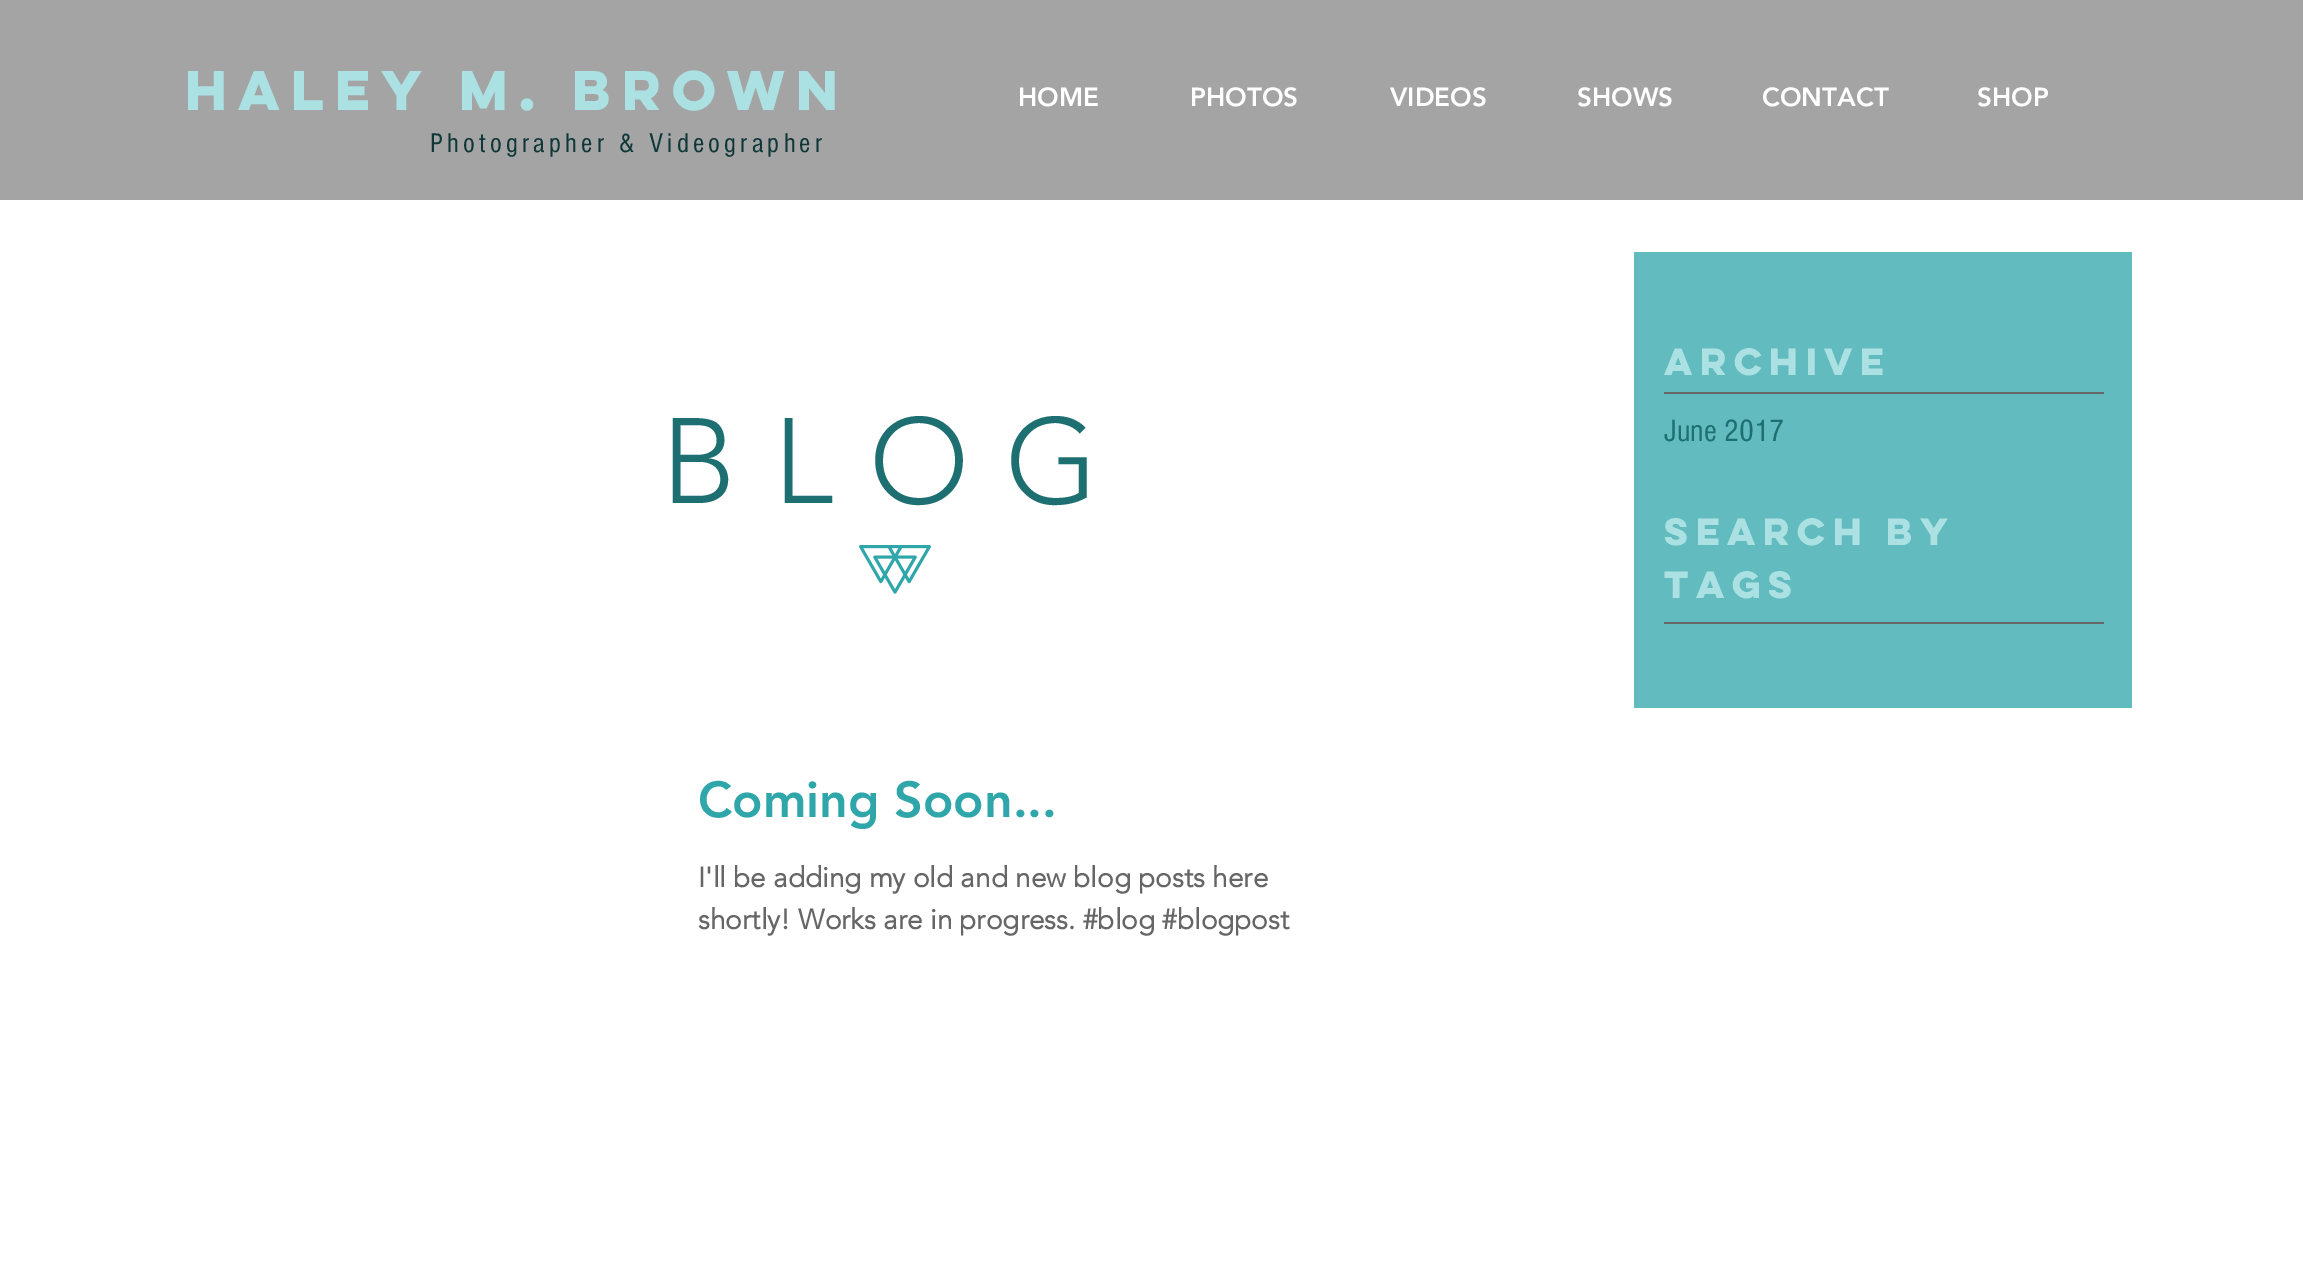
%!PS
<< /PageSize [2303 1282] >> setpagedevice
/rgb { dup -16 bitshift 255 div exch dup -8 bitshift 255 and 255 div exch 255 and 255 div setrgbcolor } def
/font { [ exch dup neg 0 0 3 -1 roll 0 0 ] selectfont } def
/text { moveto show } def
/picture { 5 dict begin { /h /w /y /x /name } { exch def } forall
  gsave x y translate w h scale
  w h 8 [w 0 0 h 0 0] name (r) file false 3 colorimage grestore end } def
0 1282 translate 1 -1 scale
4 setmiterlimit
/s1 { /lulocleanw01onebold-Bold 50 font 16#ABE1E2 rgb } def
/s2 { /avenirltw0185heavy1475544-Black 26 font 16#FFFFFF rgb } def
/s3 { /lulocleanw01onebold-Bold 34 font 16#ABE1E2 rgb } def
/s4 { /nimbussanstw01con-Regular 32 font 16#1E6F71 rgb } def
/s5 { /avenirltw0185heavy1475544-Black 50 font 16#2EA6AA rgb } def
/s6 { /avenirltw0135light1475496-Bold 28 font 16#666666 rgb } def
16#FFFFFF rgb
0 0 2303 1282 rectfill
16#A4A4A4 rgb
0 0 2303 200 rectfill
s1
(HALEY M. BROWN) 185 110 text
s2
(HOME) 1018 106 text
(PHOTOS) 1190 106 text
(VIDEOS) 1390 106 text
(SHOWS) 1577 106 text
(CONTACT) 1762 106 text
(SHOP) 1977 106 text
/nimbussanstw01con-Regular 28 font
16#0F3738 rgb
430 152 moveto 4.2 0 (Photographer & Videographer) ashow
/avenirltw0135light1475496-Light 120 font
16#1E6F71 rgb
661 503 moveto 36 0 (BLOG) ashow
16#62BCBF rgb
1634 252 498 456 rectfill
s3
(Archive) 1664 375 text
16#666666 rgb
1664 392 440 2 rectfill
s4
(June 2017) 1664 441 text
s3
(Search By) 1664 545 text
(Tags) 1664 598 text
16#666666 rgb
1664 622 440 2 rectfill
(pic1.raw) 859 545 72 49 picture
s5
(Coming Soon...) 698 817 text
s6
(I'll be adding my old and new blog posts here) 698 887 text
(shortly! Works are in progress. #blog #blogpost) 698 929 text
showpage
